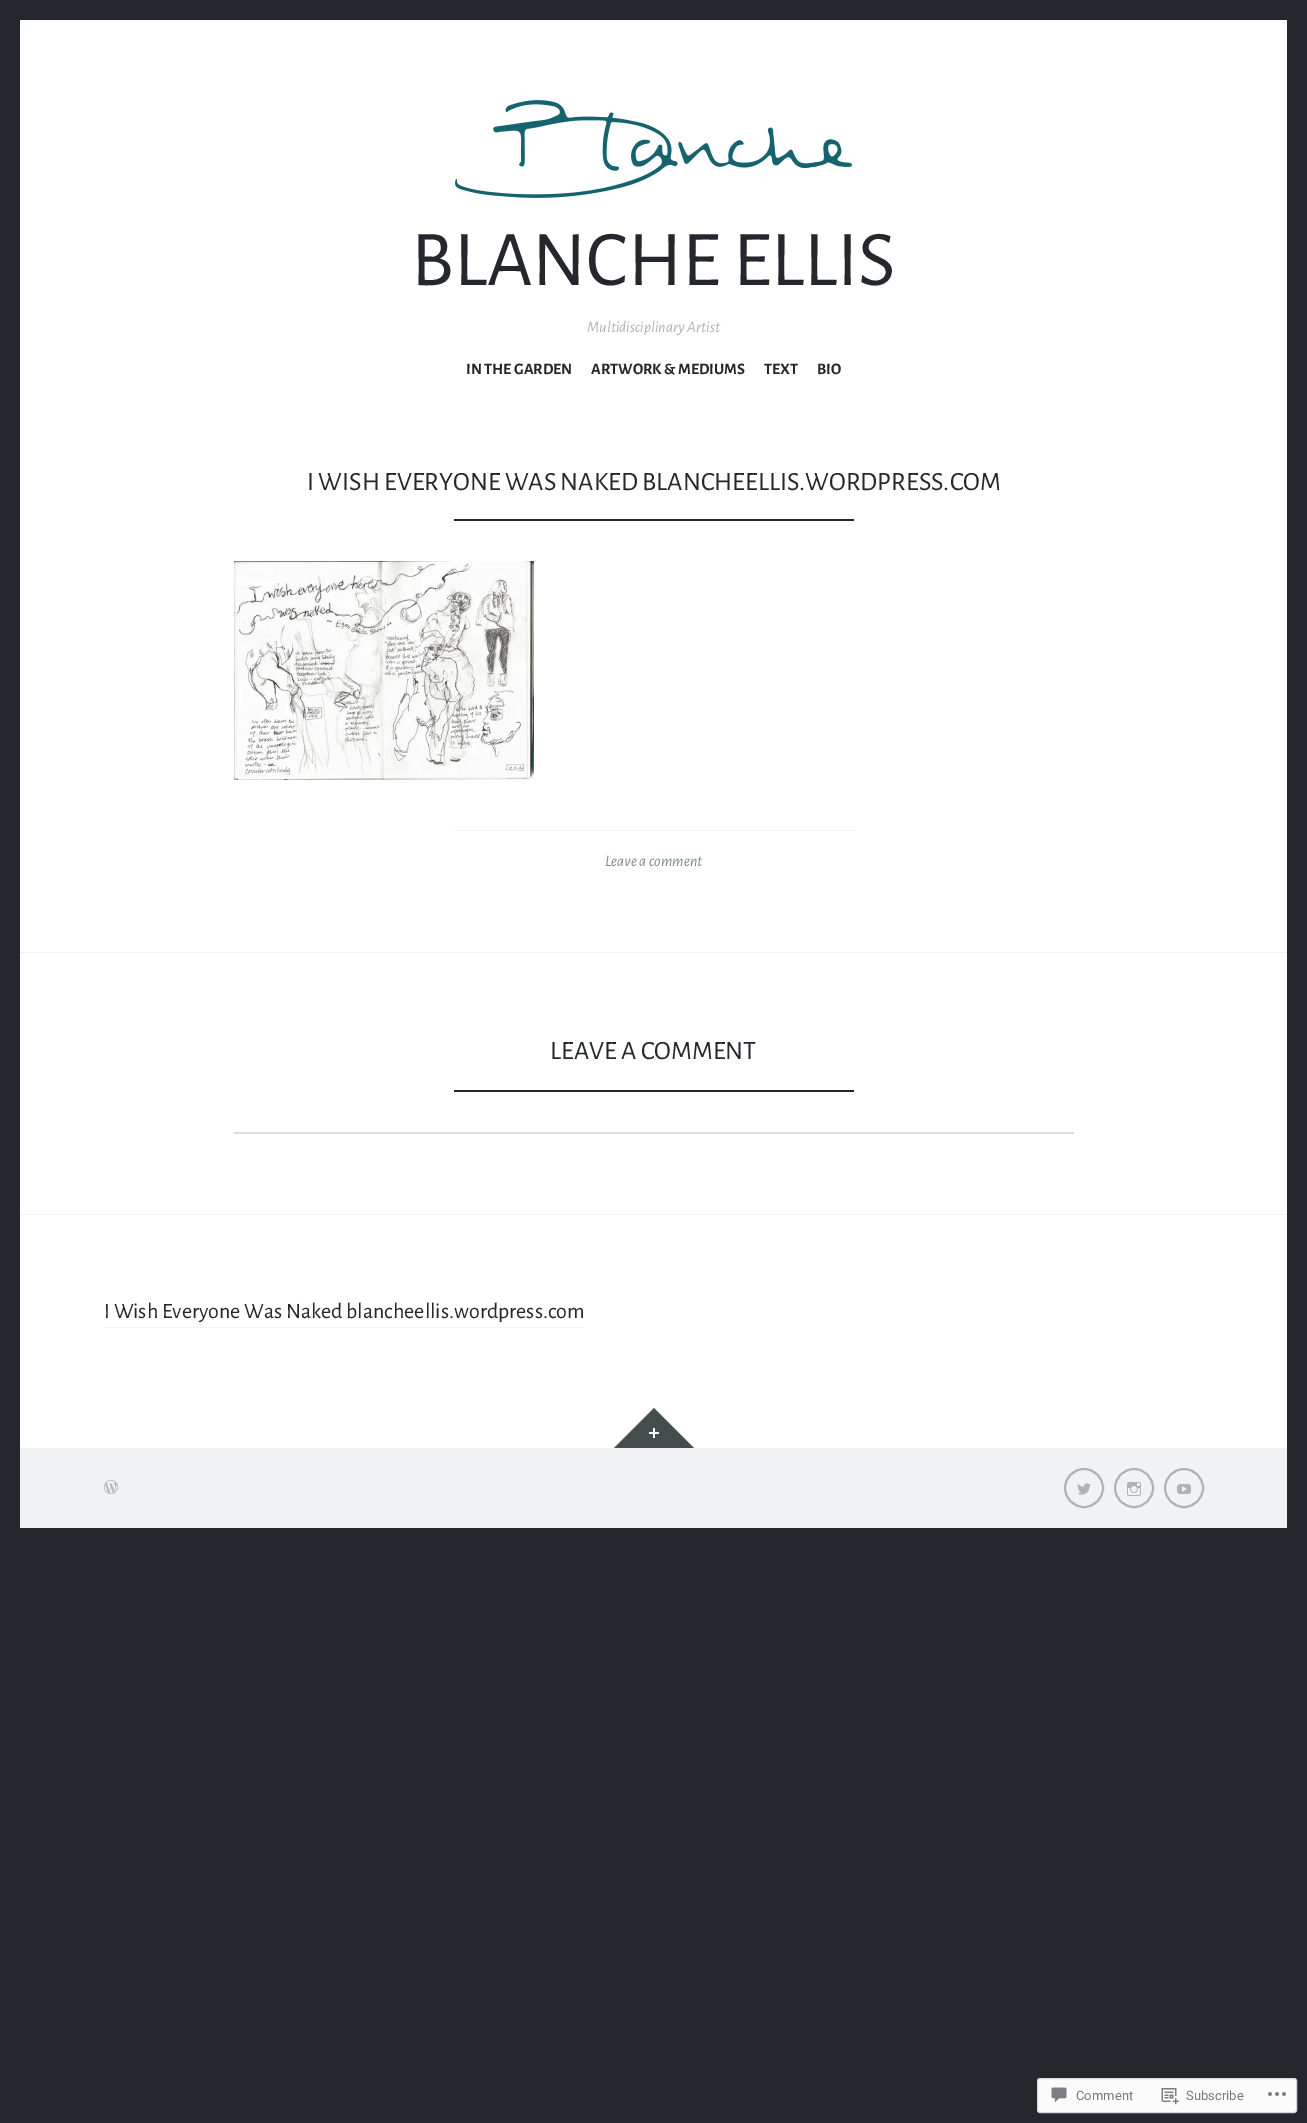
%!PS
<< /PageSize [1307 2123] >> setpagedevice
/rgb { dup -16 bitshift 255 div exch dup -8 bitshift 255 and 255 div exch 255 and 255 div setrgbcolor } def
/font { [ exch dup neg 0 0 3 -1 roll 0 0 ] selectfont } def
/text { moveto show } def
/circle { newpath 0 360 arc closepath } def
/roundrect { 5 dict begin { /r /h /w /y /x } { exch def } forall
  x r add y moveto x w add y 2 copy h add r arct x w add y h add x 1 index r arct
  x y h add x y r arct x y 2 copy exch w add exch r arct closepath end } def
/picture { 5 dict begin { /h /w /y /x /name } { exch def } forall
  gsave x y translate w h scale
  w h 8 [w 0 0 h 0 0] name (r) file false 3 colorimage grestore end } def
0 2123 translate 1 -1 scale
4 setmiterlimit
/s1 { /AlegreyaSans-Regular 79.25 font 16#24282D rgb } def
/s2 { /AlegreyaSans-Italic 16 font 16#B1B2B3 rgb } def
/s3 { /AlegreyaSans-Bold 16 font 16#24282D rgb } def
/s4 { /AlegreyaSans-Regular 26.4 font 16#24282D rgb } def
/s5 { /AlegreyaSans-Italic 16 font 16#7F8D8C rgb } def
/s6 { /AlegreyaSans-Regular 22 font 16#24282D rgb } def
/s7 { /Roboto-Regular 13 font 16#767A80 rgb } def
16#24282D rgb
0 0 1307 2123 rectfill
16#FFFFFF rgb
20 20 1267 1428 rectfill
(pic1.raw) 455 100 397 98 picture
s1
(BLANCHE ELLIS) 411 285 text
s2
(Multidisciplinary Artist) 587 332 text
s3
(IN THE GARDEN) 466 374 text
(ARTWORK & MEDIUMS) 591 374 text
(TEXT) 764 374 text
(BIO) 817 374 text
s4
(I WISH EVERYONE WAS NAKED BLANCHEELLIS.WORDPRESS.COM) 307 490 text
454 519 400 2 rectfill
(pic2.raw) 234 561 300 219 picture
16#F1F2F3 rgb
454 830 400 1 rectfill
s5
(Leave a comment) 605 866 text
16#F1F2F3 rgb
20 952 1267 1 rectfill
s4
(LEAVE A COMMENT) 550 1059 text
454 1090 400 2 rectfill
16#DCDCDE rgb
234 1132 840 2 rectfill
16#F1F2F3 rgb
20 1214 1267 1 rectfill
s6
(I Wish Everyone Was Naked blancheellis.wordpress.com) 104 1318 text
16#F1F2F3 rgb
104 1327 480 1 rectfill
16#464D4D rgb
694 1448 moveto 614 1448 lineto 654 1408 lineto closepath fill
(pic3.raw) 649 1428 10 10 picture
16#F1F2F3 rgb
20 1448 1267 80 rectfill
(pic4.raw) 104 1480 14 14 picture
16#B1B2B3 rgb
2 setlinewidth
1084 1488 19 circle stroke
(pic5.raw) 1077 1483 14 12 picture
1134 1488 19 circle stroke
(pic6.raw) 1127 1482 14 14 picture
1184 1488 19 circle stroke
(pic7.raw) 1177 1484 14 10 picture
16#FBFBFB rgb
1037.5 2078.5 259 34 2.5 roundrect gsave fill grestore
16#D8D8DA rgb
1 setlinewidth
stroke
(pic8.raw) 1051 2087 16 16 picture
s7
(Comment) 1076 2100 text
(pic9.raw) 1161 2088 18 17 picture
(Subscribe) 1186 2100 text
(pic10.raw) 1268 2092 18 4 picture
showpage
